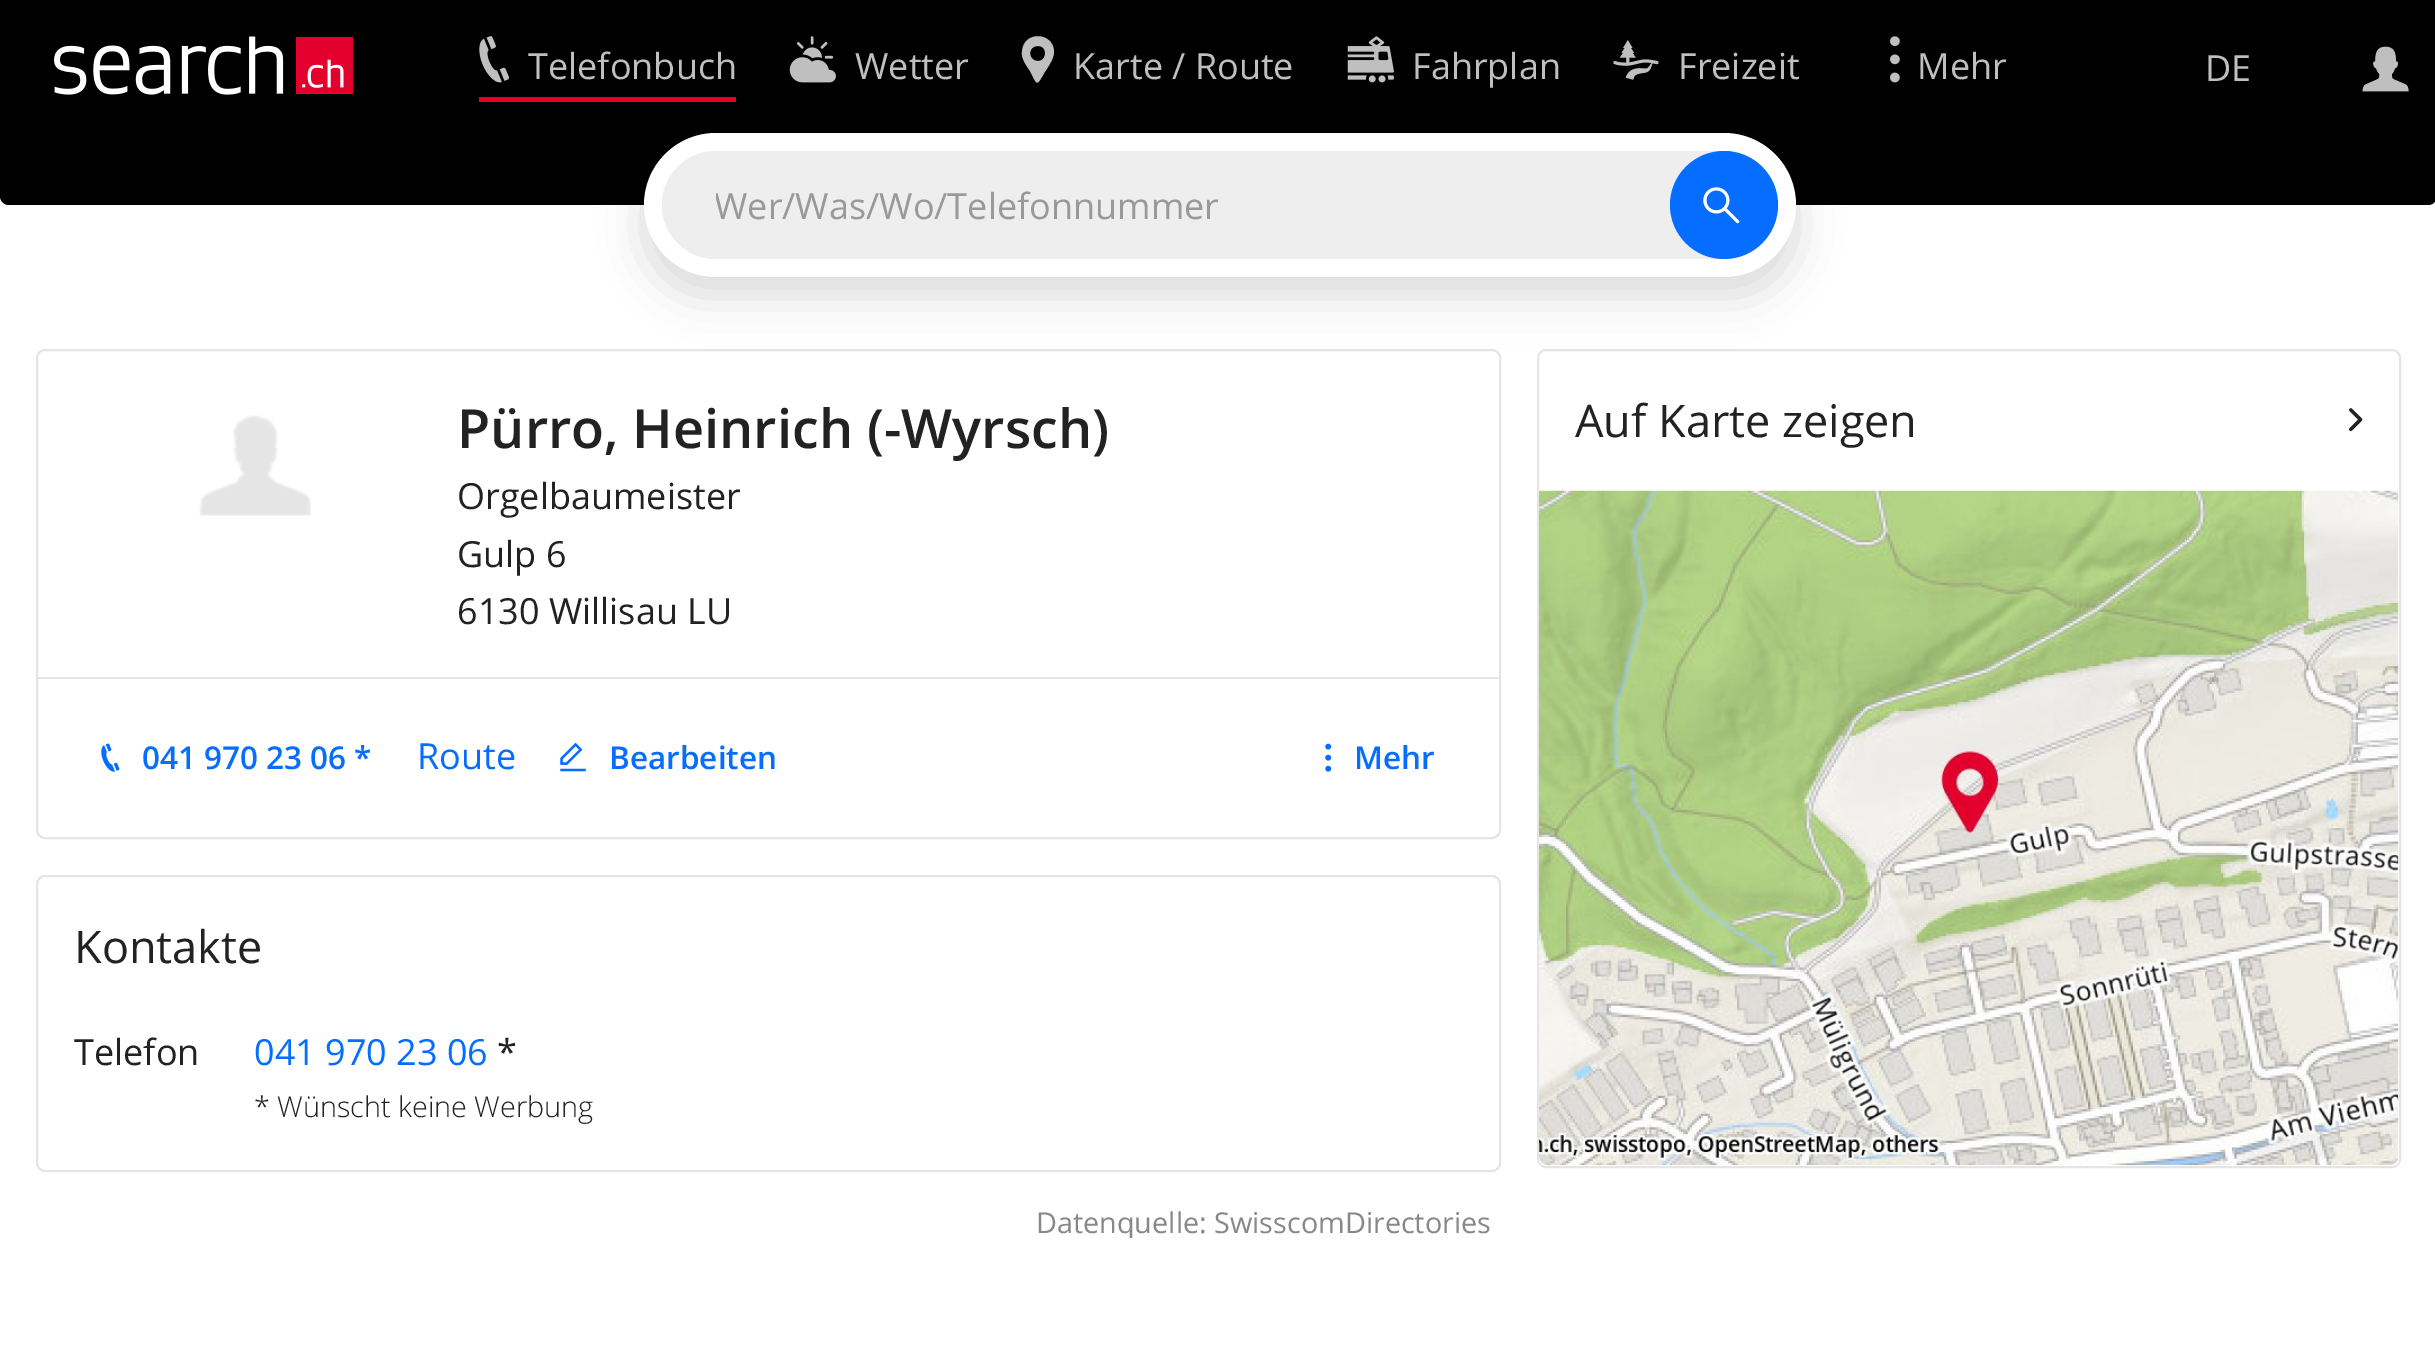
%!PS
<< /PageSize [2435 1370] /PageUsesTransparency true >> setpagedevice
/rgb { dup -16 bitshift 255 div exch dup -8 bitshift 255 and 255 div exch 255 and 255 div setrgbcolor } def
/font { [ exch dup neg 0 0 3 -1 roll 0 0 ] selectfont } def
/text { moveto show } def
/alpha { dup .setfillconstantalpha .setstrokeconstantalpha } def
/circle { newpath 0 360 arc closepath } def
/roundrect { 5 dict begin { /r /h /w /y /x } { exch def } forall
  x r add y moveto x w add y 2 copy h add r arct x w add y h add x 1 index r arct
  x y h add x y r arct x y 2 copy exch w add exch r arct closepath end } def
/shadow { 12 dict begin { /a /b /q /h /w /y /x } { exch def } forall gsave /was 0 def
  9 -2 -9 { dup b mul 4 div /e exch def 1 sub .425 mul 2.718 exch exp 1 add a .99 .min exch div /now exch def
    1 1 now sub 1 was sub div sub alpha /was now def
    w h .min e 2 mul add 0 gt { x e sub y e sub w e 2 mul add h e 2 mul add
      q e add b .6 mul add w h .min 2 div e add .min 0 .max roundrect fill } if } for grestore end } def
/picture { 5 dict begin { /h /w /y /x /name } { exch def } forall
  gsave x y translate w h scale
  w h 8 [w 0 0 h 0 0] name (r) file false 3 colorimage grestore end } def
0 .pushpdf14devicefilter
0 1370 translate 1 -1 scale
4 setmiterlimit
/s1 { /OpenSans-Regular 36 font 16#BFBFBF rgb } def
/s2 { /OpenSans-Regular 36 font 16#999999 rgb } def
/s3 { /OpenSans-SemiBold 54 font 16#222222 rgb } def
/s4 { /OpenSans-Regular 36 font 16#222222 rgb } def
/s5 { /OpenSans-SemiBold 31.5 font 16#056DFF rgb } def
/s6 { /OpenSans-Regular 36 font 16#056DFF rgb } def
/s7 { /OpenSans-Regular 45 font 16#222222 rgb } def
/s8 { /OpenSans-Light 28.75 font 16#222222 rgb } def
/s9 { /OpenSans-Regular 28.75 font 16#888888 rgb } def
16#FFFFFF rgb
0 0 2435 1370 rectfill
16#000000 rgb
0 0 2435 133 rectfill
(pic1.raw) 54 36 299 59 picture
16#E4002C rgb
479 97 257 5 rectfill
(pic2.raw) 479 36 30 47 picture
s1
(Telefonbuch) 528 79 text
(pic3.raw) 789 36 47 47 picture
(Wetter) 855 79 text
1054 52 moveto 1054 32 1023 30 1022 52 curveto 1021 59 1027 66 1030 71 curveto 1037 84 1036 87 1043 75 curveto 1046 69 1054 60 1054 52 curveto closepath 1038 61 moveto 1028 61 1027 46 1038 46 curveto 1048 46 1047 61 1038 61 curveto closepath fill
(Karte / Route) 1073 79 text
(pic4.raw) 1347 36 47 47 picture
(Fahrplan) 1412 79 text
(pic5.raw) 1613 40 46 40 picture
(Freizeit) 1678 79 text
(pic6.raw) 1890 36 10 47 picture
(Mehr) 1917 79 text
(DE) 2205 81 text
(pic7.raw) 2362 46 47 46 picture
16#000000 rgb
0 133 moveto 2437 133 lineto 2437 196 lineto 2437 201 2433 205 2428 205 curveto 9 205 lineto 4 205 0 201 0 196 curveto closepath fill
16#E5E5E5 rgb
2 setlinewidth
37 350 1463 488 8 roundrect stroke
1538 350 862 817 8 roundrect stroke
16#000000 rgb
644 151 1152 144 72 22.5 0.15 shadow
16#FFFFFF rgb
644 133 1152 144 72 roundrect fill
16#EEEEEE rgb
662 151 1116 108 54 roundrect fill
662 151 1008 108 54 roundrect fill
gsave
716 180 954 50 rectclip
s2
(Wer/Was/Wo/Telefonnummer) 714 219 text
grestore
16#056DFF rgb
1724 205 54 circle fill
(pic8.raw) 1703 187 37 37 picture
(pic9.raw) 199 415 112 101 picture
s3
(Pürro, Heinrich \(-Wyrsch\)) 457 448 text
s4
(Orgelbaumeister) 457 509 text
(Gulp 6) 457 567 text
(6130 Willisau LU) 457 624 text
16#E6E6E6 rgb
38 677 1461 2 rectfill
(pic10.raw) 101 743 19 29 picture
s5
(041 970 23 06 *) 142 769 text
s6
(Route) 417 769 text
(pic11.raw) 560 742 26 30 picture
s5
(Bearbeiten) 609 769 text
(pic12.raw) 1325 743 7 29 picture
(Mehr) 1354 769 text
16#E5E5E5 rgb
37 876 1463 295 8 roundrect stroke
s7
(Kontakte) 74 963 text
s4
(Telefon) 74 1065 text
s6
(041 970 23 06) 254 1065 text
s4
(*) 497 1065 text
s8
(* Wünscht keine Werbung) 254 1117 text
gsave
0 313 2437 925 rectclip
s9
(Datenquelle: SwisscomDirectories) 1036 1233 text
grestore
s7
(Auf Karte zeigen) 1575 437 text
(pic13.raw) 2349 408 14 24 picture
(pic14.raw) 1539 490 860 676 picture
.poppdf14devicefilter showpage
